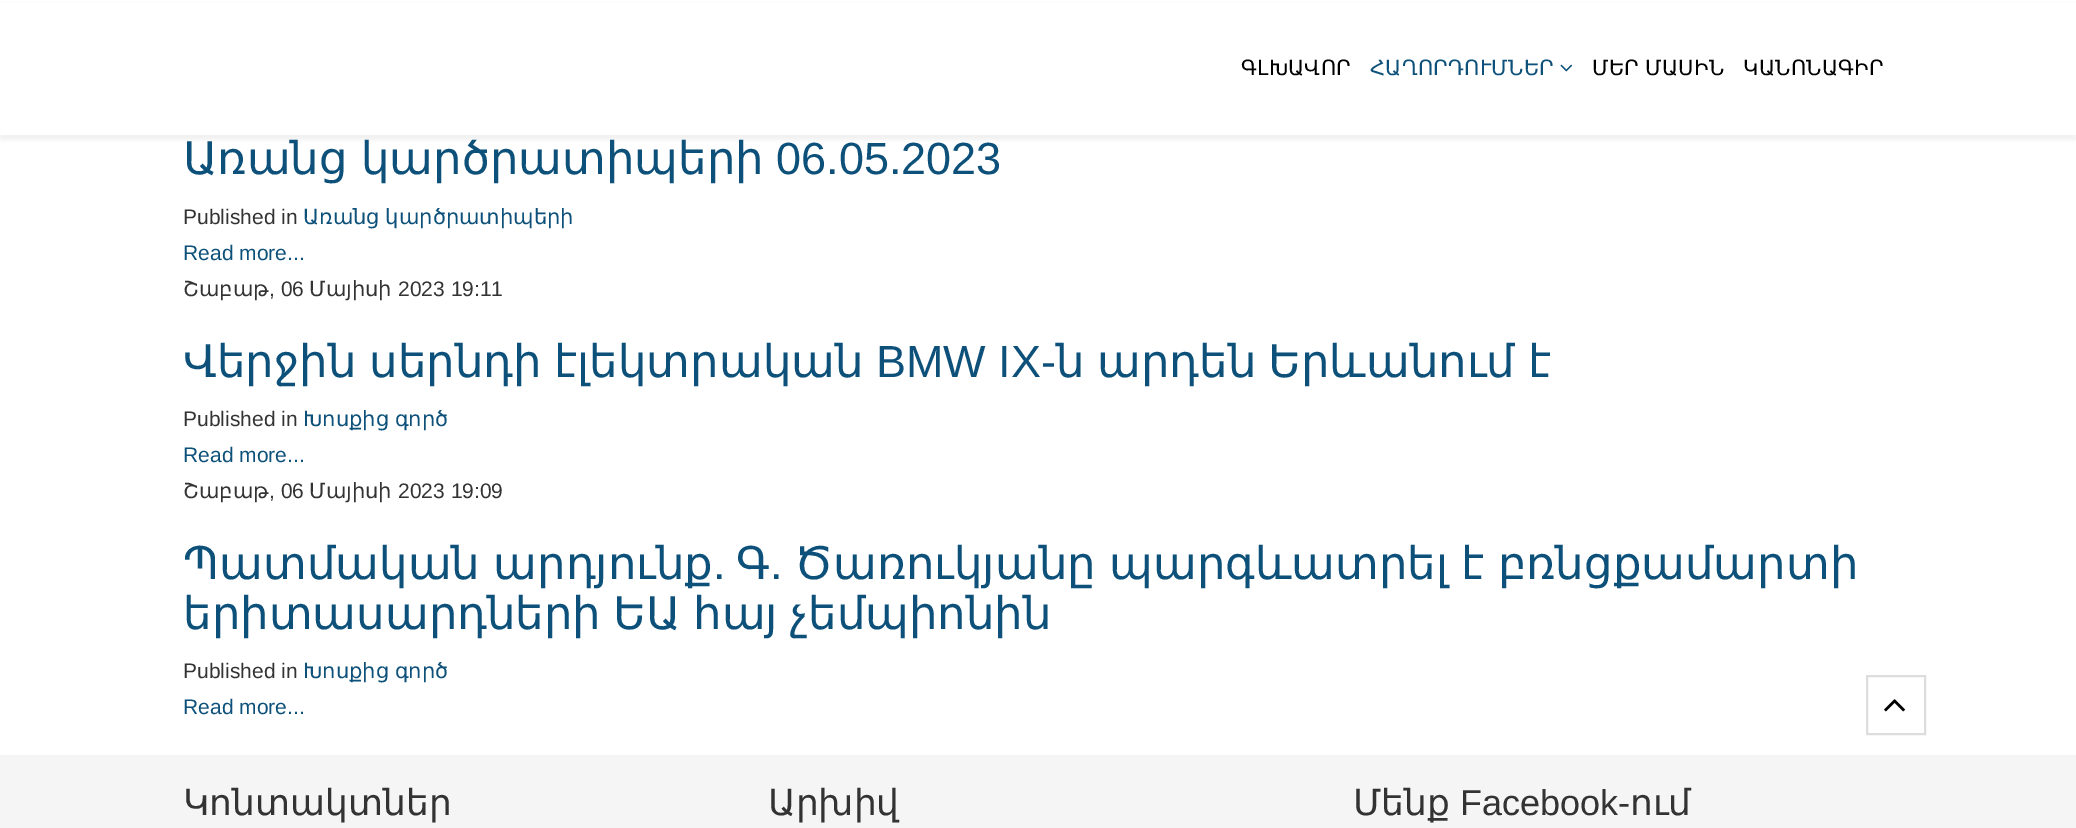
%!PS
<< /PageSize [2076 828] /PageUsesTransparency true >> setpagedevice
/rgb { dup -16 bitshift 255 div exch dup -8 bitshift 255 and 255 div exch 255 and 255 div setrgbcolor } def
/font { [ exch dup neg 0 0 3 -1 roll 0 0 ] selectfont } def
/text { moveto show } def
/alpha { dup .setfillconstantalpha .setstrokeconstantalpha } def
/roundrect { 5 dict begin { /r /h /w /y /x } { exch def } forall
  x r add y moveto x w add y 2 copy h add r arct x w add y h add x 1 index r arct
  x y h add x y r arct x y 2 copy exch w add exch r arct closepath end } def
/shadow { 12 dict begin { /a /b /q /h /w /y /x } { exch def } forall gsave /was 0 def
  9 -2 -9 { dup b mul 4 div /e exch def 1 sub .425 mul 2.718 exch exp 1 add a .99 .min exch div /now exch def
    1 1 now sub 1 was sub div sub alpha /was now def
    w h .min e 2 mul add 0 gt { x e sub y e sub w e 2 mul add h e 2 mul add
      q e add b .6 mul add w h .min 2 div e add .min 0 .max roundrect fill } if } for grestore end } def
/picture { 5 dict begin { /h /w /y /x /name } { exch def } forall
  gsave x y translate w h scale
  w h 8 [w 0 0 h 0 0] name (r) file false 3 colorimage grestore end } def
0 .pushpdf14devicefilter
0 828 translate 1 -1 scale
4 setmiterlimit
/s1 { /LiberationSans-Regular 45 font 16#0D507A rgb } def
/s2 { /LiberationSans-Regular 21 font 16#333333 rgb } def
/s3 { /LiberationSans-Regular 21 font 16#0D507A rgb } def
/s4 { /DejaVuSans-Regular 21 font 16#333333 rgb } def
/s5 { /DejaVuSans-Regular 45 font 16#0D507A rgb } def
/s6 { /DejaVuSans-Regular 36 font 16#333333 rgb } def
/s7 { /LiberationSans-Regular 36 font 16#333333 rgb } def
16#FFFFFF rgb
0 0 2076 828 rectfill
16#000000 rgb
0 5 2076 135 0 2 0.05 shadow
16#FFFFFF rgb
0 3 2076 132 rectfill
/DejaVuSans-Regular 21 font
16#000000 rgb
1241 75 moveto 0.25 0 (ԳԼԽԱՎՈՐ) ashow
16#0D507A rgb
1370 75 moveto 0.25 0 (ՀԱՂՈՐԴՈՒՄՆԵՐ) ashow
(pic1.raw) 1560 64 13 8 picture
16#000000 rgb
1592 75 moveto -1 0 32 0.25 0 (ՄԵՐ ՄԱՍԻՆ) awidthshow
1743 75 moveto 0.25 0 (ԿԱՆՈՆԱԳԻՐ) ashow
/DejaVuSans-Regular 45 font
16#0D507A rgb
183 174 moveto -1 0 32 (Առանց կարծրատիպերի) widthshow
s1
(06.05.2023) 776 174 text
s2
(Published in) 183 224 text
/DejaVuSans-Regular 21 font
16#0D507A rgb
303 224 moveto -1 0 32 (Առանց կարծրատիպերի) widthshow
s3
(Read more...) 183 260 text
s4
(Շաբաթ) 183 296 text
s2
(, 06) 269 296 text
s4
(Մայիսի) 309 296 text
s2
(2023 19:11) 398 296 text
s5
(Վերջին) 183 377 text
(սերնդի) 369 377 text
(էլեկտրական) 554 377 text
s1
(BMW IX-) 876 377 text
s5
(ն) 1056 377 text
(արդեն) 1097 377 text
(Երևանում) 1268 377 text
(է) 1528 377 text
s2
(Published in) 183 426 text
/DejaVuSans-Regular 21 font
16#0D507A rgb
303 426 moveto -1 0 32 (Խոսքից գործ) widthshow
s3
(Read more...) 183 462 text
s4
(Շաբաթ) 183 498 text
s2
(, 06) 269 498 text
s4
(Մայիսի) 309 498 text
s2
(2023 19:09) 398 498 text
/DejaVuSans-Regular 45 font
16#0D507A rgb
183 579 moveto -1 0 32 (Պատմական արդյունք) widthshow
s1
(.) 713 579 text
s5
(Գ) 736 579 text
s1
(.) 770 579 text
/DejaVuSans-Regular 45 font
794 579 moveto -1 0 32 (Ծառուկյանը պարգևատրել է բռնցքամարտի) widthshow
183 629 moveto -2 0 32 (երիտասարդների ԵԱ հայ չեմպիոնին) widthshow
s2
(Published in) 183 678 text
/DejaVuSans-Regular 21 font
16#0D507A rgb
303 678 moveto -1 0 32 (Խոսքից գործ) widthshow
s3
(Read more...) 183 714 text
16#F5F5F5 rgb
0 755 2076 73 rectfill
s6
(Կոնտակտներ) 183 815 text
(Արխիվ) 768 815 text
(Մենք) 1353 815 text
s7
(Facebook-) 1460 815 text
s6
(ում) 1630 815 text
16#DDDDDD rgb
2 setlinewidth
1867 676 58 58 rectstroke
(pic2.raw) 1884 699 21 13 picture
.poppdf14devicefilter showpage
